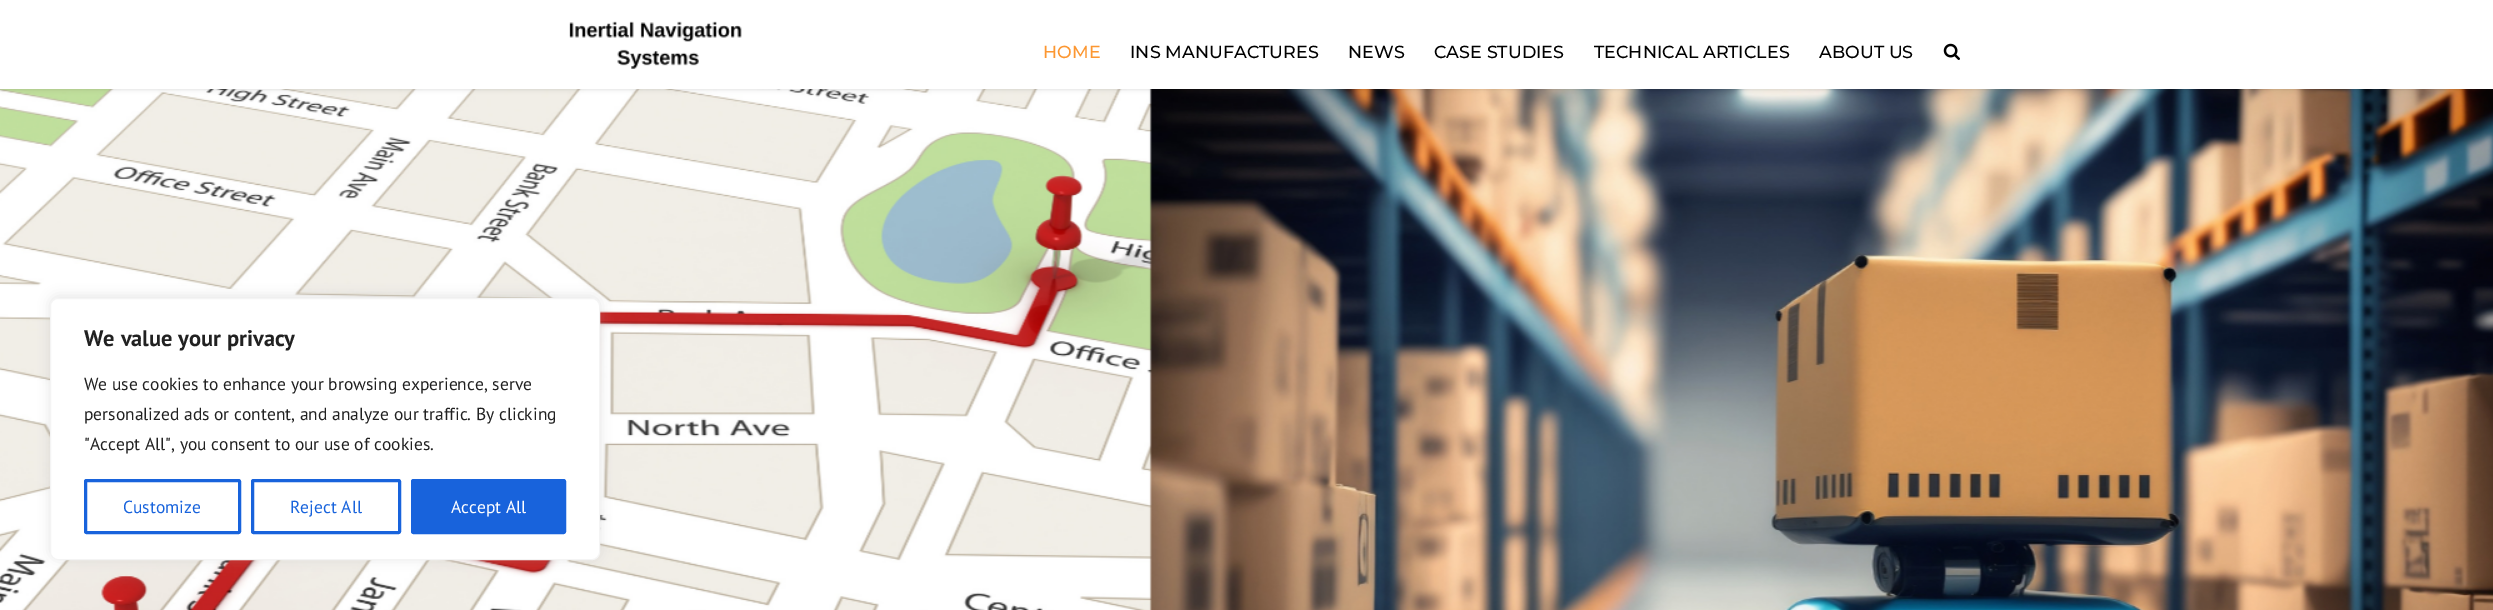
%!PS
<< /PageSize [2493 610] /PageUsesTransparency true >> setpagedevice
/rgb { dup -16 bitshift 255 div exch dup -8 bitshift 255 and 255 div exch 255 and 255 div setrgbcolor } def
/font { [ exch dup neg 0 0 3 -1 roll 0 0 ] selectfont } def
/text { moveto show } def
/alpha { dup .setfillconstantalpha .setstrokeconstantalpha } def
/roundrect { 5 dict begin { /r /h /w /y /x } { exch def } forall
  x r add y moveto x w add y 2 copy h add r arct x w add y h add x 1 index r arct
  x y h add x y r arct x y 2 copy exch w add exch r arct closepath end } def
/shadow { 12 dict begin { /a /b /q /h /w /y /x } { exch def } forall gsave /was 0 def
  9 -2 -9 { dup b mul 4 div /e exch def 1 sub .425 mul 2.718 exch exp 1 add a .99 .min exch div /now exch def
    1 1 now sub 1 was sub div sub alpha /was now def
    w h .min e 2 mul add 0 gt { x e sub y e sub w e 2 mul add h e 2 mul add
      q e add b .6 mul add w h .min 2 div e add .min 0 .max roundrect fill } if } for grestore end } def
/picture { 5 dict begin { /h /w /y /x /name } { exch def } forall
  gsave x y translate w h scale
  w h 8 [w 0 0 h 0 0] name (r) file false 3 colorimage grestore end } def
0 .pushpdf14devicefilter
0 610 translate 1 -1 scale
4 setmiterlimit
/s1 { /Montserrat-Medium 17.5 font 16#FC9732 rgb } def
/s2 { /Montserrat-Medium 17.5 font 16#000000 rgb } def
/s3 { /PTSans-Bold 22.5 font 16#212121 rgb } def
/s4 { /PTSans-Regular 17.5 font 16#212121 rgb } def
/s5 { /PTSans-Regular 17.5 font 16#1863DC rgb } def
/s6 { /PTSans-Regular 17.5 font 16#FFFFFF rgb } def
16#FFFFFF rgb
0 0 2493 610 rectfill
(pic3.raw) 0 89 2493 521 picture
16#000000 rgb
1 0 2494 89 0 2.5 0.15 shadow
16#FFFFFF rgb
0 0 2493 89 rectfill
(pic1.raw) 569 21 173 48 picture
s1
(HOME) 1043 58 text
s2
(INS MANUFACTURES) 1130 58 text
(NEWS) 1348 58 text
(CASE STUDIES) 1434 58 text
(TECHNICAL ARTICLES) 1594 58 text
(ABOUT US) 1819 58 text
(pic2.raw) 1943 43 17 17 picture
16#ACABAB rgb
50 296 550 263 8 6 0.3 shadow
16#FFFFFF rgb
50.5 298.5 549 261 7.5 roundrect gsave fill grestore
16#F4F4F4 rgb
stroke
s3
(We value your privacy) 84 346 text
s4
(We use cookies to enhance your browsing experience, serve) 84 390 text
(personalized ads or content, and analyze our traffic. By clicking) 84 420 text
("Accept All", you consent to our use of cookies.) 84 450 text
16#1863DC rgb
3 setlinewidth
85.5 480.5 154 52 1 roundrect stroke
(Customize) 123 513 text
252.5 480.5 147 52 1 roundrect stroke
(Reject All) 290 513 text
412.5 480.5 152 52 1 roundrect gsave fill grestore
stroke
s6
(Accept All) 451 513 text
.poppdf14devicefilter showpage
